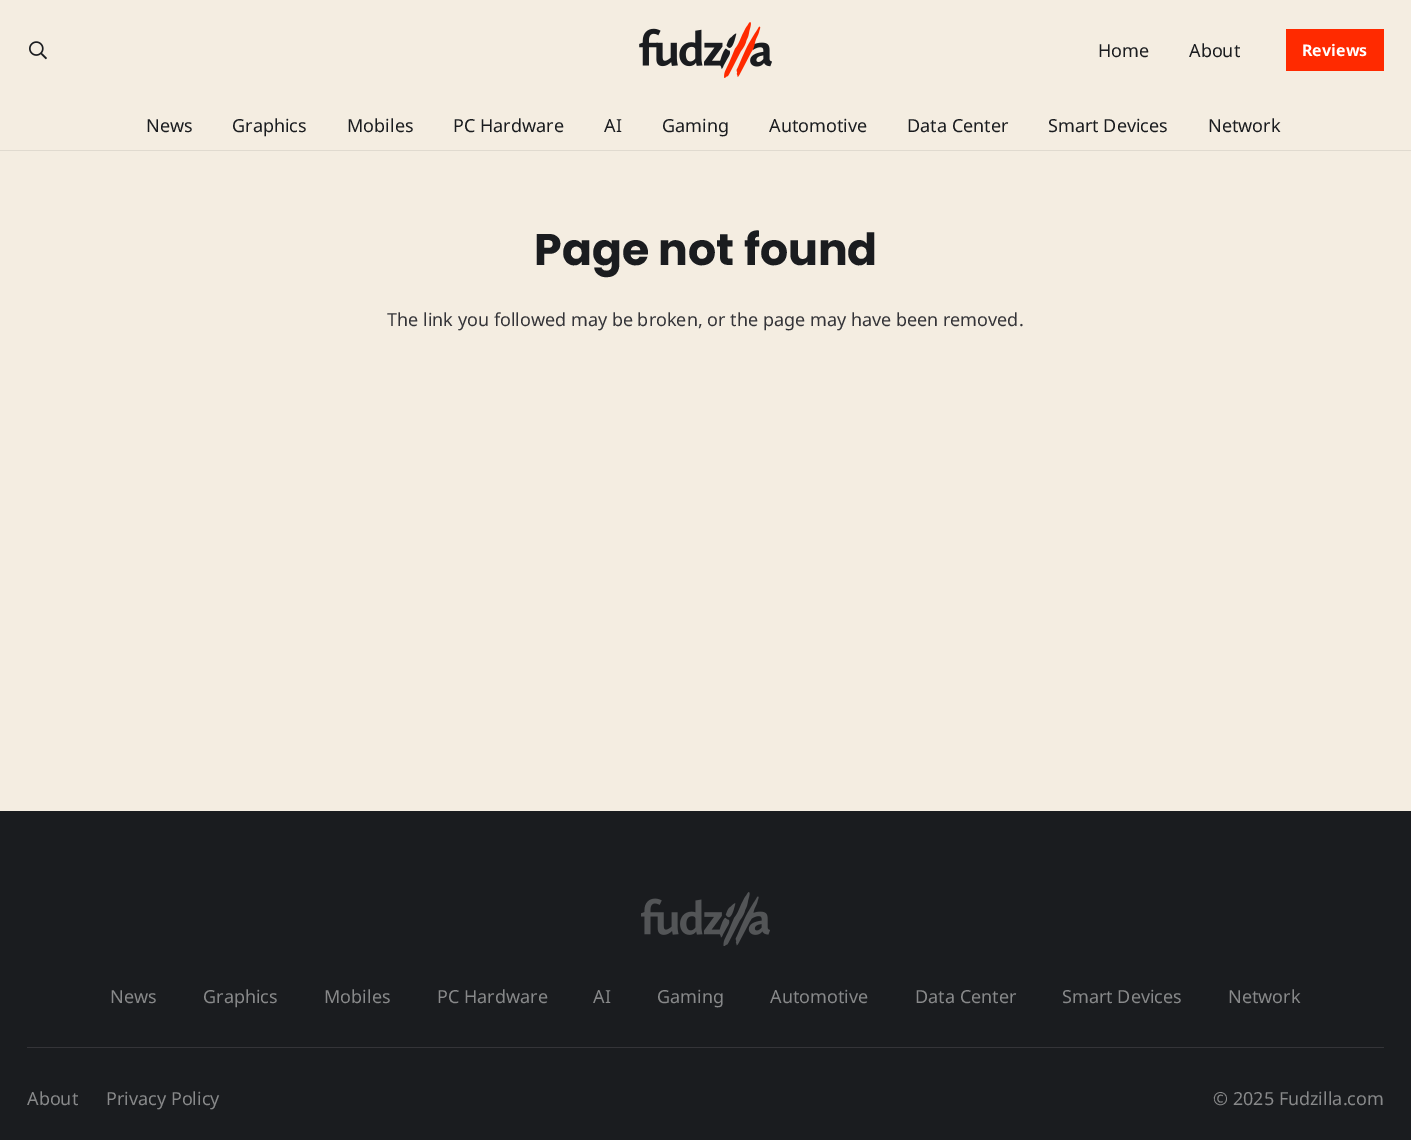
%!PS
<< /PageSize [1411 1140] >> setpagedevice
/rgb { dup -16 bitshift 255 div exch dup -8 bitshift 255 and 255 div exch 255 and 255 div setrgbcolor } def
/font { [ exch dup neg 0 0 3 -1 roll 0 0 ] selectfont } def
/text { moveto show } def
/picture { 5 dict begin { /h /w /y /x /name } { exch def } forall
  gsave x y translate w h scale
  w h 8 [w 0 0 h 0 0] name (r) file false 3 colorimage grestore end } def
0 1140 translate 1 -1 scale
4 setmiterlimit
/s1 { /NotoSans-Regular 18 font 16#1A1C1F rgb } def
/s2 { /NotoSans-Bold 16 font 16#FFFFFF rgb } def
/s3 { /Poppins-Bold 44.25 font 16#1A1C1F rgb } def
/s4 { /NotoSans-Regular 18 font 16#343438 rgb } def
/s5 { /NotoSans-Regular 18 font 16#88898A rgb } def
16#F4EDE1 rgb
0 0 1411 1140 rectfill
(pic1.raw) 29 41 18 19 picture
(pic2.raw) 639 22 133 56 picture
s1
(Home) 1098 57 text
(About) 1189 57 text
16#FF2A00 rgb
1286 29 98 42 rectfill
s2
(Reviews) 1302 56 text
16#E0DACF rgb
0 150 1411 1 rectfill
s1
(News) 146 132 text
(Graphics) 232 132 text
(Mobiles) 347 132 text
(PC Hardware) 453 132 text
(AI) 604 132 text
(Gaming) 662 132 text
(Automotive) 769 132 text
(Data Center) 907 132 text
(Smart Devices) 1048 132 text
(Network) 1208 132 text
s3
(Page not found) 534 265 text
s4
(The link you followed may be broken, or the page may have been removed.) 387 326 text
16#1A1C1F rgb
0 811 1411 329 rectfill
(pic3.raw) 641 892 129 54 picture
s5
(News) 110 1003 text
(Graphics) 203 1003 text
(Mobiles) 324 1003 text
(PC Hardware) 437 1003 text
(AI) 593 1003 text
(Gaming) 657 1003 text
(Automotive) 770 1003 text
(Data Center) 915 1003 text
(Smart Devices) 1062 1003 text
(Network) 1228 1003 text
16#343438 rgb
27 1047 1357 1 rectfill
s5
(About) 27 1105 text
(Privacy Policy) 106 1105 text
(© 2025 Fudzilla.com) 1213 1105 text
showpage
